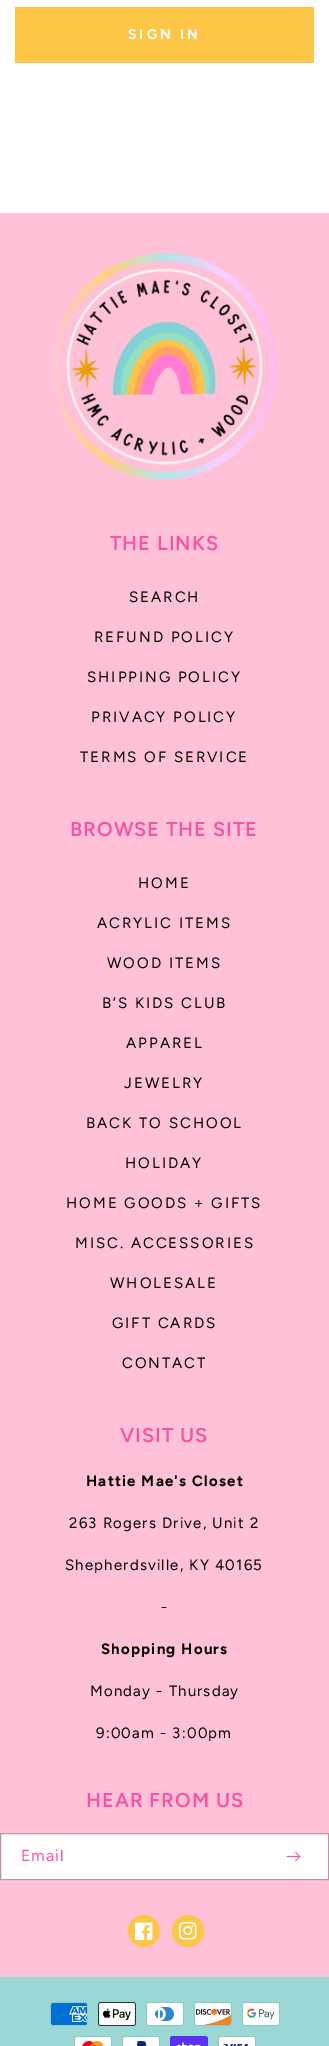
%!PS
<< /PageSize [329 2046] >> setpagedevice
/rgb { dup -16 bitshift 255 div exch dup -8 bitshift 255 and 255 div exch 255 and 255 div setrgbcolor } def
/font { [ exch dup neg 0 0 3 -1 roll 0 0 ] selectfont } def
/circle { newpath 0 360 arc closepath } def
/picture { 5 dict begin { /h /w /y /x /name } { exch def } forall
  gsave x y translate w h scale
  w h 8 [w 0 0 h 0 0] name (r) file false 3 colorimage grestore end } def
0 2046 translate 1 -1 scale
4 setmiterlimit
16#FFFFFF rgb
0 0 329 2046 rectfill
16#FEC646 rgb
15 7 299 56 rectfill
/Figtree-Bold 14 font
16#FFFFFF rgb
128 39 moveto 3 0 (SIGN IN) ashow
16#FFC1D7 rgb
0 213 329 1764 rectfill
(pic1.raw) 52 253 226 227 picture
/Figtree-SemiBold 20 font
16#FA51A4 rgb
110 550 moveto 1 0 (THE LINKS) ashow
/Figtree-Regular 15 font
16#000000 rgb
129 602 moveto 2 0 (SEARCH) ashow
94 642 moveto 2 0 (REFUND POLICY) ashow
87 682 moveto 2 0 (SHIPPING POLICY) ashow
91 722 moveto 2 0 (PRIVACY POLICY) ashow
80 762 moveto 2 0 (TERMS OF SERVICE) ashow
/Figtree-SemiBold 20 font
16#FA51A4 rgb
70 836 moveto 1 0 (BROWSE THE SITE) ashow
/Figtree-Regular 15 font
16#000000 rgb
138 888 moveto 2 0 (HOME) ashow
97 928 moveto 2 0 (ACRYLIC ITEMS) ashow
107 968 moveto 2 0 (WOOD ITEMS) ashow
102 1008 moveto 2 0 (B’S KIDS CLUB) ashow
126 1048 moveto 2 0 (APPAREL) ashow
124 1088 moveto 2 0 (JEWELRY) ashow
86 1128 moveto 2 0 (BACK TO SCHOOL) ashow
125 1168 moveto 2 0 (HOLIDAY) ashow
66 1208 moveto 2 0 (HOME GOODS + GIFTS) ashow
75 1248 moveto 2 0 (MISC. ACCESSORIES) ashow
110 1288 moveto 2 0 (WHOLESALE) ashow
112 1328 moveto 2 0 (GIFT CARDS) ashow
122 1368 moveto 2 0 (CONTACT) ashow
/Figtree-SemiBold 20 font
16#FA51A4 rgb
120 1442 moveto 1 0 (VISIT US) ashow
/Figtree-Bold 15 font
16#000000 rgb
86 1486 moveto 1.2 0 (Hattie Mae's Closet) ashow
/Figtree-Regular 15 font
69 1528 moveto 1.2 0 (263 Rogers Drive, Unit 2) ashow
65 1570 moveto 1.2 0 (Shepherdsville, KY 40165) ashow
161 1612 moveto 1.2 0 (-) ashow
/Figtree-Bold 15 font
101 1654 moveto 1.2 0 (Shopping Hours) ashow
/Figtree-Regular 15 font
90 1696 moveto 1.2 0 (Monday - Thursday) ashow
96 1738 moveto 1.2 0 (9:00am - 3:00pm) ashow
/Figtree-SemiBold 20 font
16#FA51A4 rgb
86 1807 moveto 1 0 (HEAR FROM US) ashow
16#FFFFFF rgb
1 1834 327 45 rectfill
16#BF91A1 rgb
0.5 1833.5 328 46 rectstroke
/Figtree-Regular 16 font
16#FA51A4 rgb
21 1861 moveto 1 0 (Email) ashow
(pic2.raw) 286 1851 15 11 picture
16#FEC646 rgb
144 1931 16 circle fill
(pic3.raw) 135 1922 18 18 picture
188 1931 16 circle fill
(pic4.raw) 179 1922 18 18 picture
16#99D8D4 rgb
0 1977 329 69 rectfill
(pic5.raw) 50 2002 38 24 picture
(pic6.raw) 98 2002 38 24 picture
(pic7.raw) 146 2002 38 24 picture
(pic8.raw) 194 2002 38 24 picture
(pic9.raw) 242 2002 38 24 picture
(pic10.raw) 74 2036 38 10 picture
(pic11.raw) 122 2036 38 10 picture
(pic12.raw) 170 2036 38 10 picture
(pic13.raw) 218 2036 38 10 picture
showpage
